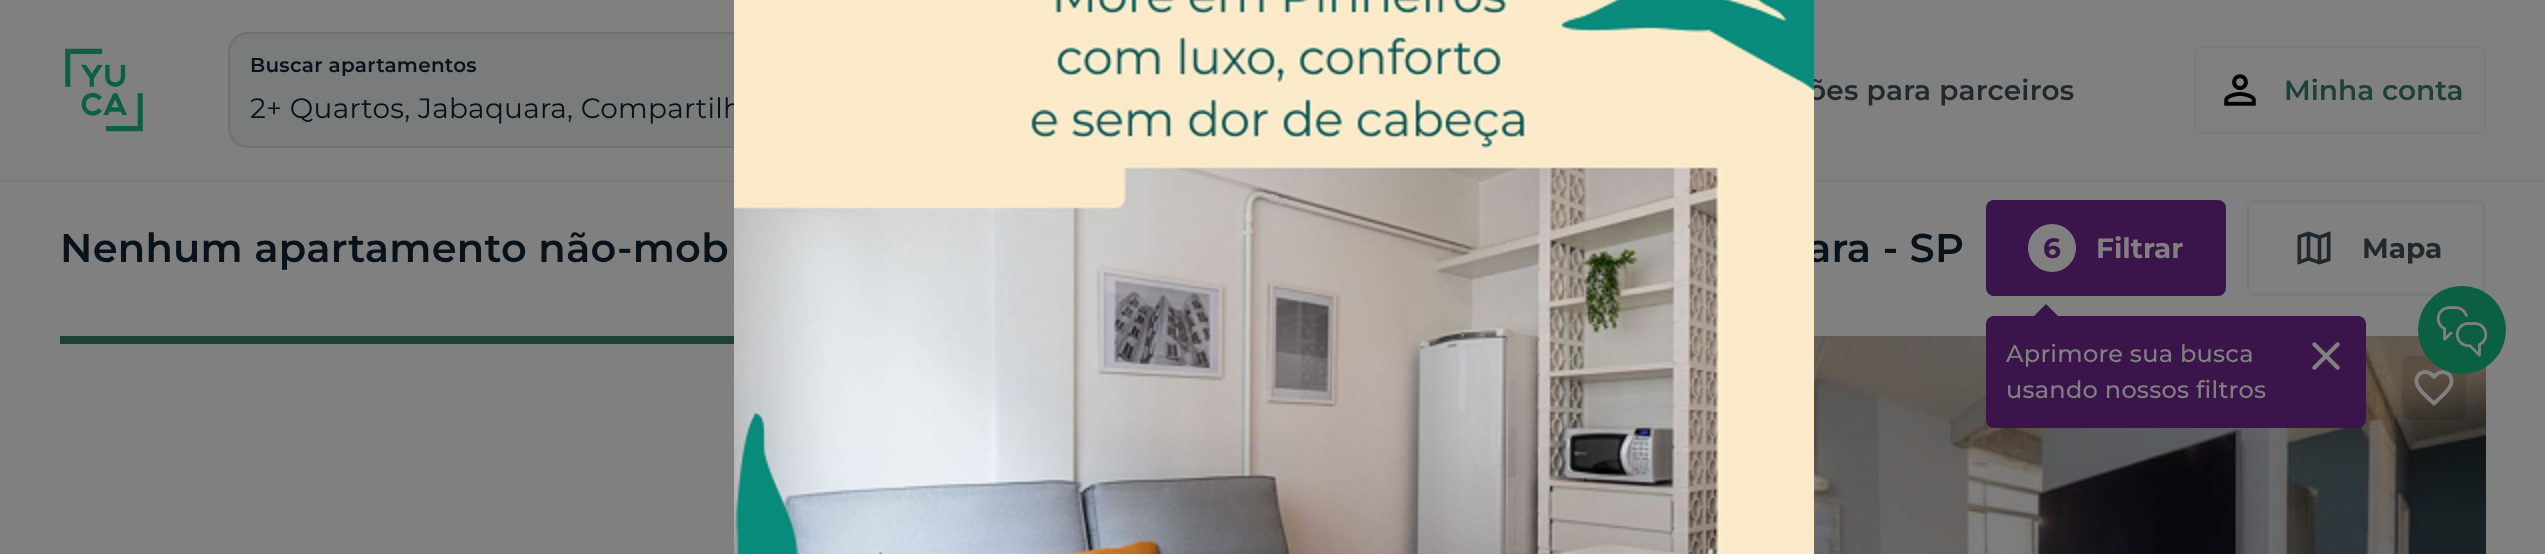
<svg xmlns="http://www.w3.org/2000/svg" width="2545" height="554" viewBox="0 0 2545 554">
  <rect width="100%" height="100%" fill="#808080"/>
  <rect x="0" y="180" width="2545" height="2" fill="#7a7b7b"/>
  <rect x="229" y="33" width="708" height="114" rx="19" fill="#7a7b7b" stroke="#6f7172" stroke-width="2"/>
  <text x="250" y="118" font-family="Montserrat" font-size="28" letter-spacing="0.25" fill="#08121b">2+ Quartos, Jabaquara, Compartilh</text>
  <text x="1808" y="100" font-family="Montserrat" font-size="28" font-weight="600" letter-spacing="0.25" fill="#21292c">ões para parceiros</text>
  <text x="1807" y="262" font-family="Montserrat" font-size="40" font-weight="600" letter-spacing="0.25" fill="#08121b">ara - SP</text>
  <image x="734" y="0" width="1080" height="554" href="img1.png"/>
  <image x="65" y="48" width="78" height="84" href="img2.png"/>
  <text x="250" y="72" font-family="Montserrat" font-size="20" font-weight="600" letter-spacing="0.25" fill="#08121b">Buscar apartamentos</text>
  <rect x="2195" y="47" width="290" height="86" rx="7" fill="none" stroke="#7a7b7b" stroke-width="2"/>
  <image x="2224" y="74" width="32" height="32" href="img3.png"/>
  <text x="2284" y="100" font-family="Montserrat" font-size="28" font-weight="600" fill="#1d4039">Minha conta</text>
  <text x="60" y="262" font-family="Montserrat" font-size="40" font-weight="600" letter-spacing="0.25" fill="#08121b">Nenhum apartamento não-mob</text>
  <rect x="1986" y="200" width="240" height="96" rx="8" fill="#3a144a"/>
  <circle cx="2052" cy="248" r="24" fill="#808080"/>
  <text x="2043" y="258" font-family="Montserrat" font-size="28" font-weight="bold" fill="#3a144a">6</text>
  <text x="2096" y="258" font-family="Montserrat" font-size="28" font-weight="bold" fill="#808080">Filtrar</text>
  <rect x="2248" y="202" width="236" height="92" rx="6" fill="none" stroke="#7a7b7b" stroke-width="4"/>
  <image x="2297" y="231" width="34" height="34" href="img4.png"/>
  <text x="2362" y="258" font-family="Montserrat" font-size="28" font-weight="bold" fill="#21292c">Mapa</text>
  <image x="1814" y="336" width="672" height="218" href="img6.png"/>
  <rect x="1986" y="316" width="380" height="112" rx="8" fill="#3a144a"/>
  <path d="M2058 316H2034L2046 304Z" fill="#3a144a"/>
  <text x="2006" y="362" font-family="Montserrat" font-size="24" font-weight="500" letter-spacing="0.25" fill="#808080">Aprimore sua busca</text>
  <text x="2006" y="398" font-family="Montserrat" font-size="24" font-weight="500" letter-spacing="0.25" fill="#808080">usando nossos filtros</text>
  <image x="2312" y="342" width="28" height="28" href="img5.png"/>
  <rect x="60" y="336" width="674" height="8" fill="#1d4039"/>
  <rect x="2402" y="356" width="64" height="64" rx="8" fill="#000000" fill-opacity="0.1"/>
  <image x="2414" y="370" width="40" height="36" href="img7.png"/>
  <circle cx="2462" cy="330" r="44" fill="#0a6041"/>
  <image x="2436" y="306" width="52" height="51" href="img8.png"/>
</svg>
